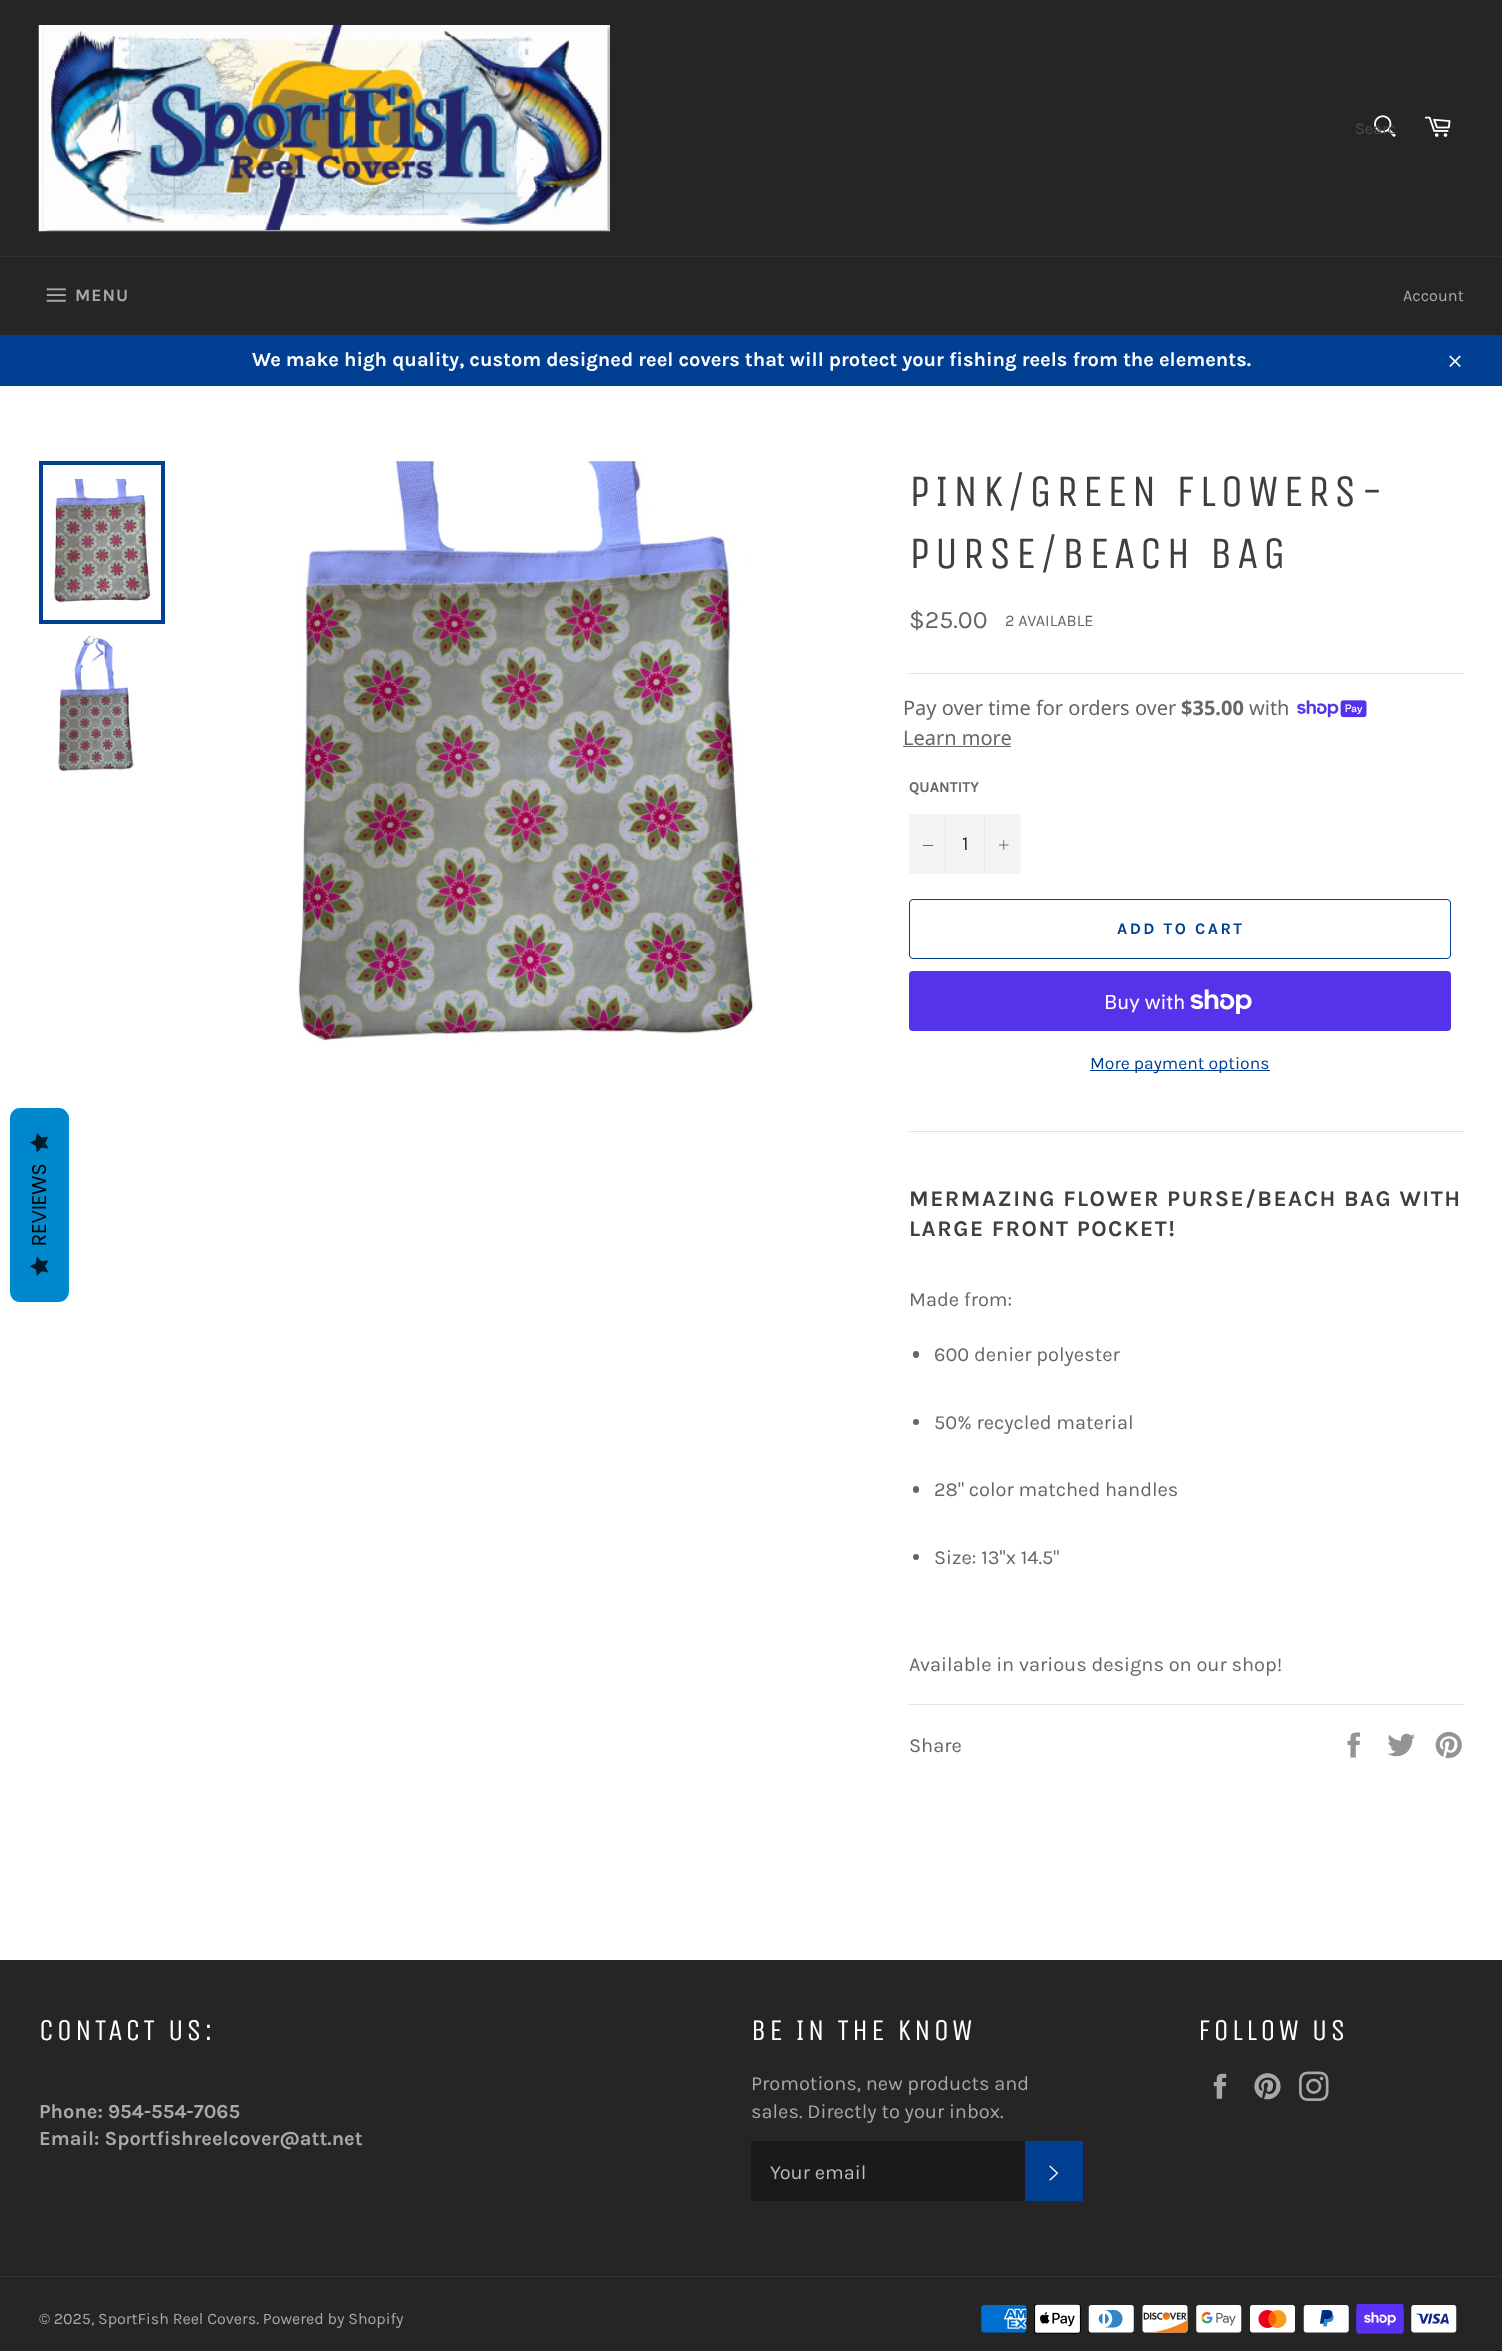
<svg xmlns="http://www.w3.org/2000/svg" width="1502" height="2351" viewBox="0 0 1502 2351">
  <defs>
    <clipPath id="clip1"><rect x="1355" y="119" width="40" height="19"/></clipPath>
  </defs>
  <rect width="100%" height="100%" fill="#262525"/>
  <image x="38" y="25" width="572" height="207" href="img1.png"/>
  <image x="1374" y="115" width="22" height="22" href="img2.png"/>
  <g clip-path="url(#clip1)">
    <text x="1355" y="134" font-family="Karla" font-size="16.25" fill="#4a4a4a">Searc</text>
  </g>
  <image x="1424" y="116" width="27" height="21" href="img3.png"/>
  <rect x="0" y="256" width="1502" height="1" fill="#333232"/>
  <image x="46" y="288" width="20" height="14" href="img4.png"/>
  <text x="75" y="301" font-family="Karla" font-size="17.5" font-weight="bold" letter-spacing="1" fill="#a8a8a8">MENU</text>
  <text x="1403" y="301" font-family="Karla" font-size="16.25" fill="#a8a8a8">Account</text>
  <rect x="0" y="335" width="1502" height="51" fill="#003f92"/>
  <text x="252" y="366" font-family="Karla" font-size="20" font-weight="bold" fill="#ffffff">We make high quality, custom designed reel covers that will protect your fishing reels from the elements.</text>
  <image x="1449" y="355" width="12" height="12" href="img5.png"/>
  <rect x="0" y="386" width="1502" height="1574" fill="#ffffff"/>
  <image x="51" y="478" width="102" height="128" href="img6.png"/>
  <rect x="41" y="463" width="122" height="159" fill="none" stroke="#003f92" stroke-width="4"/>
  <image x="57" y="636" width="78" height="138" href="img7.png"/>
  <image x="298" y="461" width="457" height="581" href="img8.png"/>
  <text x="909" y="506" font-family="Unica One" font-size="45" letter-spacing="4.5" fill="#403f3f">PINK/GREEN FLOWERS-</text>
  <text x="909" y="568" font-family="Unica One" font-size="45" letter-spacing="4.5" fill="#403f3f">PURSE/BEACH BAG</text>
  <text x="909" y="628" font-family="Karla" font-size="25" fill="#666666">$25.00</text>
  <text x="1005" y="626" font-family="Karla" font-size="16.25" fill="#666666">2 AVAILABLE</text>
  <rect x="909" y="673" width="555" height="1" fill="#e0e0e6"/>
  <text x="903" y="715" font-family="Noto Sans" font-size="20" fill="#666666">Pay over time for orders over</text>
  <text x="1181" y="715" font-family="Noto Sans" font-size="20" font-weight="bold" fill="#666666">$35.00</text>
  <text x="1249" y="715" font-family="Noto Sans" font-size="20" fill="#666666">with</text>
  <image x="1297" y="700" width="70" height="18" href="img9.png"/>
  <text x="903" y="745" font-family="Noto Sans" font-size="20" fill="#666666">Learn more</text>
  <rect x="903" y="746" width="108" height="1" fill="#666666"/>
  <text x="909" y="792" font-family="Karla" font-size="15" font-weight="bold" fill="#666666">QUANTITY</text>
  <rect x="909" y="814" width="112" height="60" fill="#f4f4f4"/>
  <rect x="945" y="814" width="1" height="60" fill="#e7e7e7"/>
  <rect x="923" y="845" width="10" height="1" fill="#666666"/>
  <text x="962" y="850" font-family="Karla" font-size="20" fill="#333333">1</text>
  <rect x="984" y="814" width="1" height="60" fill="#e7e7e7"/>
  <image x="999" y="840" width="10" height="10" href="img10.png"/>
  <rect x="909.5" y="899.5" width="541" height="59" rx="3.5" fill="none" stroke="#003f92"/>
  <text x="1117" y="934" font-family="Karla" font-size="16.25" font-weight="bold" letter-spacing="2.5" fill="#003f92">ADD TO CART</text>
  <rect x="909" y="971" width="542" height="60" rx="4" fill="#5433eb"/>
  <text x="1104" y="1009" font-family="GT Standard" font-size="20" fill="#ffffff">Buy with</text>
  <image x="1190" y="989" width="62" height="25" href="img11.png"/>
  <rect x="1090" y="1070" width="180" height="1" fill="#003f92"/>
  <text x="1090" y="1069" font-family="Karla" font-size="17.5" fill="#003f92">More payment options</text>
  <rect x="909" y="1131" width="555" height="1" fill="#e0e0e6"/>
  <text x="909" y="1206" font-family="Karla" font-size="22.5" font-weight="bold" letter-spacing="1.5" fill="#403f3f">MERMAZING FLOWER PURSE/BEACH BAG WITH</text>
  <text x="909" y="1236" font-family="Karla" font-size="22.5" font-weight="bold" letter-spacing="1.5" fill="#403f3f">LARGE FRONT POCKET!</text>
  <text x="909" y="1306" font-family="Karla" font-size="20" fill="#666666">Made from:</text>
  <rect x="913" y="1351" width="6" height="7" rx="3" fill="#666666"/>
  <text x="934" y="1361" font-family="Karla" font-size="20" fill="#666666">600 denier polyester</text>
  <circle cx="916" cy="1422" r="3" fill="#666666"/>
  <text x="934" y="1429" font-family="Karla" font-size="20" fill="#666666">50% recycled material</text>
  <rect x="913" y="1486" width="6" height="7" rx="3" fill="#666666"/>
  <text x="934" y="1496" font-family="Karla" font-size="20" fill="#666666">28" color matched handles</text>
  <circle cx="916" cy="1557" r="3" fill="#666666"/>
  <text x="934" y="1564" font-family="Karla" font-size="20" fill="#666666">Size: 13"x 14.5"</text>
  <text x="909" y="1671" font-family="Karla" font-size="20" fill="#666666">Available in various designs on our shop!</text>
  <rect x="909" y="1704" width="555" height="1" fill="#e0e0e6"/>
  <text x="909" y="1752" font-family="Karla" font-size="20" fill="#666666">Share</text>
  <image x="1347" y="1732" width="13" height="26" href="img12.png"/>
  <image x="1387" y="1733" width="28" height="24" href="img13.png"/>
  <image x="1435" y="1731" width="27" height="28" href="img14.png"/>
  <text x="39" y="2040" font-family="Unica One" font-size="30" letter-spacing="3" fill="#ffffff">CONTACT US:</text>
  <text x="39" y="2118" font-family="Karla" font-size="20" font-weight="bold" fill="#a8a8a8">Phone: 954-554-7065</text>
  <text x="39" y="2145" font-family="Karla" font-size="20" font-weight="bold" fill="#a8a8a8">Email: Sportfishreelcover@att.net</text>
  <text x="751" y="2040" font-family="Unica One" font-size="30" letter-spacing="3" fill="#ffffff">BE IN THE KNOW</text>
  <text x="751" y="2090" font-family="Karla" font-size="20" fill="#a8a8a8">Promotions, new products and</text>
  <text x="751" y="2118" font-family="Karla" font-size="20" fill="#a8a8a8">sales. Directly to your inbox.</text>
  <rect x="751" y="2141" width="274" height="60" fill="#1a1a1a"/>
  <text x="770" y="2179" font-family="Karla" font-size="20" fill="#bababa">Your email</text>
  <rect x="1025" y="2141" width="58" height="60" fill="#003f92"/>
  <image x="1049" y="2165" width="10" height="16" href="img15.png"/>
  <text x="1198" y="2040" font-family="Unica One" font-size="30" letter-spacing="3" fill="#ffffff">FOLLOW US</text>
  <image x="1213" y="2073" width="14" height="26" href="img16.png"/>
  <image x="1254" y="2073" width="27" height="27" href="img17.png"/>
  <image x="1299" y="2071" width="30" height="30" href="img18.png"/>
  <rect x="0" y="2276" width="1502" height="1" fill="#333232"/>
  <text x="39" y="2324" font-family="Karla" font-size="16" fill="#a8a8a8">© 2025, SportFish Reel Covers. Powered by Shopify</text>
  <image x="981" y="2305" width="46" height="28" href="img19.png"/>
  <image x="1034" y="2304" width="47" height="30" href="img20.png"/>
  <image x="1088" y="2305" width="46" height="28" href="img21.png"/>
  <image x="1142" y="2305" width="46" height="28" href="img22.png"/>
  <image x="1196" y="2305" width="46" height="28" href="img23.png"/>
  <image x="1250" y="2305" width="45" height="28" href="img24.png"/>
  <image x="1303" y="2305" width="46" height="28" href="img25.png"/>
  <image x="1356" y="2304" width="48" height="30" href="img26.png"/>
  <image x="1411" y="2305" width="46" height="28" href="img27.png"/>
  <path d="M10 1292V1118C10 1113 14 1108 20 1108H59C64 1108 69 1113 69 1118V1292C69 1297 64 1302 59 1302H20C14 1302 10 1297 10 1292Z" fill="#0088cc"/>
  <image x="30" y="1133" width="18" height="19" href="img28.png"/>
  <text x="46" y="1246" transform="rotate(-90 46 1246)" font-family="Poppins" font-size="20" fill="#000000">REVIEWS</text>
  <image x="30" y="1257" width="18" height="19" href="img29.png"/>
</svg>
